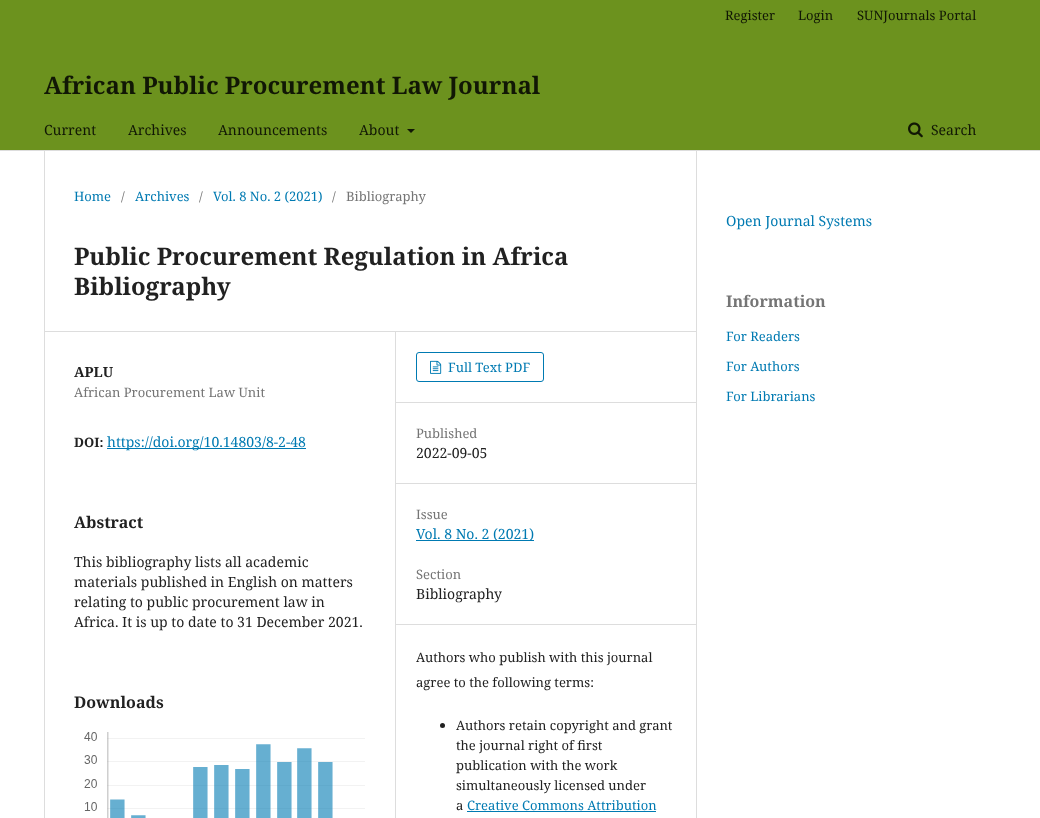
<svg xmlns="http://www.w3.org/2000/svg" width="1040" height="818" viewBox="0 0 1040 818">
  <rect width="100%" height="100%" fill="#ffffff"/>
  <rect x="0" y="0" width="1040" height="150" fill="#6c921e"/>
  <rect x="0" y="150" width="1040" height="1" fill="#dddddd"/>
  <text x="725" y="20" font-family="Noto Serif" font-size="13" fill="#111705">Register</text>
  <text x="798" y="20" font-family="Noto Serif" font-size="13" fill="#111705">Login</text>
  <text x="857" y="20" font-family="Noto Serif" font-size="13" fill="#111705">SUNJournals Portal</text>
  <text x="44" y="94" font-family="Noto Serif" font-size="24" font-weight="bold" fill="#111705">African Public Procurement Law Journal</text>
  <text x="44" y="135" font-family="Noto Serif" font-size="14" fill="#111705">Current</text>
  <text x="128" y="135" font-family="Noto Serif" font-size="14" fill="#111705">Archives</text>
  <text x="218" y="135" font-family="Noto Serif" font-size="14" fill="#111705">Announcements</text>
  <text x="359" y="135" font-family="Noto Serif" font-size="14" fill="#111705">About</text>
  <path d="M407 129H415L411 133Z" fill="#111705"/>
  <image x="908" y="122" width="15" height="16" href="img1.png"/>
  <text x="931" y="135" font-family="Noto Serif" font-size="14" fill="#111705">Search</text>
  <rect x="44" y="331" width="652" height="1" fill="#dddddd"/>
  <rect x="44" y="151" width="1" height="667" fill="#dddddd"/>
  <text x="74" y="201" font-family="Noto Serif" font-size="13" fill="#007ab2">Home</text>
  <text x="121" y="201" font-family="Noto Serif" font-size="13" fill="#757575">/</text>
  <text x="135" y="201" font-family="Noto Serif" font-size="13" fill="#007ab2">Archives</text>
  <text x="199" y="201" font-family="Noto Serif" font-size="13" fill="#757575">/</text>
  <text x="213" y="201" font-family="Noto Serif" font-size="13" fill="#007ab2">Vol. 8 No. 2 (2021)</text>
  <text x="332" y="201" font-family="Noto Serif" font-size="13" fill="#757575">/</text>
  <text x="346" y="201" font-family="Noto Serif" font-size="13" fill="#757575">Bibliography</text>
  <text x="74" y="265" font-family="Noto Serif" font-size="24" font-weight="bold" fill="#212121">Public Procurement Regulation in Africa</text>
  <text x="74" y="295" font-family="Noto Serif" font-size="24" font-weight="bold" fill="#212121">Bibliography</text>
  <rect x="395" y="332" width="1" height="486" fill="#dddddd"/>
  <text x="74" y="377" font-family="Noto Serif" font-size="14" font-weight="bold" fill="#212121">APLU</text>
  <text x="74" y="397" font-family="Noto Serif" font-size="13" fill="#757575">African Procurement Law Unit</text>
  <text x="74" y="447" font-family="Noto Serif" font-size="13" font-weight="bold" fill="#212121">DOI:</text>
  <rect x="107" y="448" width="199" height="1" fill="#007ab2"/>
  <text x="107" y="447" font-family="Noto Serif" font-size="14" fill="#007ab2">https://doi.org/10.14803/8-2-48</text>
  <text x="74" y="528" font-family="Noto Serif" font-size="16" font-weight="bold" fill="#212121">Abstract</text>
  <text x="74" y="567" font-family="Noto Serif" font-size="14" fill="#212121">This bibliography lists all academic</text>
  <text x="74" y="587" font-family="Noto Serif" font-size="14" fill="#212121">materials published in English on matters</text>
  <text x="74" y="607" font-family="Noto Serif" font-size="14" fill="#212121">relating to public procurement law in</text>
  <text x="74" y="627" font-family="Noto Serif" font-size="14" fill="#212121">Africa. It is up to date to 31 December 2021.</text>
  <text x="74" y="708" font-family="Noto Serif" font-size="16" font-weight="bold" fill="#212121">Downloads</text>
  <image x="84" y="732" width="281" height="86" href="img2.png"/>
  <rect x="396" y="402" width="300" height="1" fill="#dddddd"/>
  <rect x="416.5" y="352.5" width="127" height="29" rx="2.5" fill="none" stroke="#007ab2"/>
  <image x="430" y="360" width="12" height="14" href="img3.png"/>
  <text x="448" y="372" font-family="Noto Serif" font-size="13" fill="#007ab2">Full Text PDF</text>
  <rect x="396" y="483" width="300" height="1" fill="#dddddd"/>
  <text x="416" y="438" font-family="Noto Serif" font-size="13" fill="#757575">Published</text>
  <text x="416" y="458" font-family="Noto Serif" font-size="14" fill="#212121">2022-09-05</text>
  <rect x="396" y="624" width="300" height="1" fill="#dddddd"/>
  <text x="416" y="519" font-family="Noto Serif" font-size="13" fill="#757575">Issue</text>
  <rect x="416" y="540" width="118" height="1" fill="#007ab2"/>
  <text x="416" y="539" font-family="Noto Serif" font-size="14" fill="#007ab2">Vol. 8 No. 2 (2021)</text>
  <text x="416" y="579" font-family="Noto Serif" font-size="13" fill="#757575">Section</text>
  <text x="416" y="599" font-family="Noto Serif" font-size="14" fill="#212121">Bibliography</text>
  <text x="416" y="662" font-family="Noto Serif" font-size="13" fill="#212121">Authors who publish with this journal</text>
  <text x="416" y="687" font-family="Noto Serif" font-size="13" fill="#212121">agree to the following terms:</text>
  <circle cx="442.5" cy="725.5" r="2.5" fill="#212121"/>
  <text x="456" y="730" font-family="Noto Serif" font-size="13" fill="#212121">Authors retain copyright and grant</text>
  <text x="456" y="750" font-family="Noto Serif" font-size="13" fill="#212121">the journal right of first</text>
  <text x="456" y="770" font-family="Noto Serif" font-size="13" fill="#212121">publication with the work</text>
  <text x="456" y="790" font-family="Noto Serif" font-size="13" fill="#212121">simultaneously licensed under</text>
  <text x="456" y="810" font-family="Noto Serif" font-size="13" fill="#212121">a</text>
  <text x="467" y="810" font-family="Noto Serif" font-size="13" fill="#007ab2">Creative Commons Attribution</text>
  <rect x="467" y="811" width="189" height="1" fill="#007ab2"/>
  <rect x="696" y="151" width="1" height="667" fill="#dddddd"/>
  <text x="726" y="226" font-family="Noto Serif" font-size="14" fill="#007ab2">Open Journal Systems</text>
  <text x="726" y="307" font-family="Noto Serif" font-size="16" font-weight="bold" fill="#757575">Information</text>
  <text x="726" y="341" font-family="Noto Serif" font-size="13" fill="#007ab2">For Readers</text>
  <text x="726" y="371" font-family="Noto Serif" font-size="13" fill="#007ab2">For Authors</text>
  <text x="726" y="401" font-family="Noto Serif" font-size="13" fill="#007ab2">For Librarians</text>
</svg>
